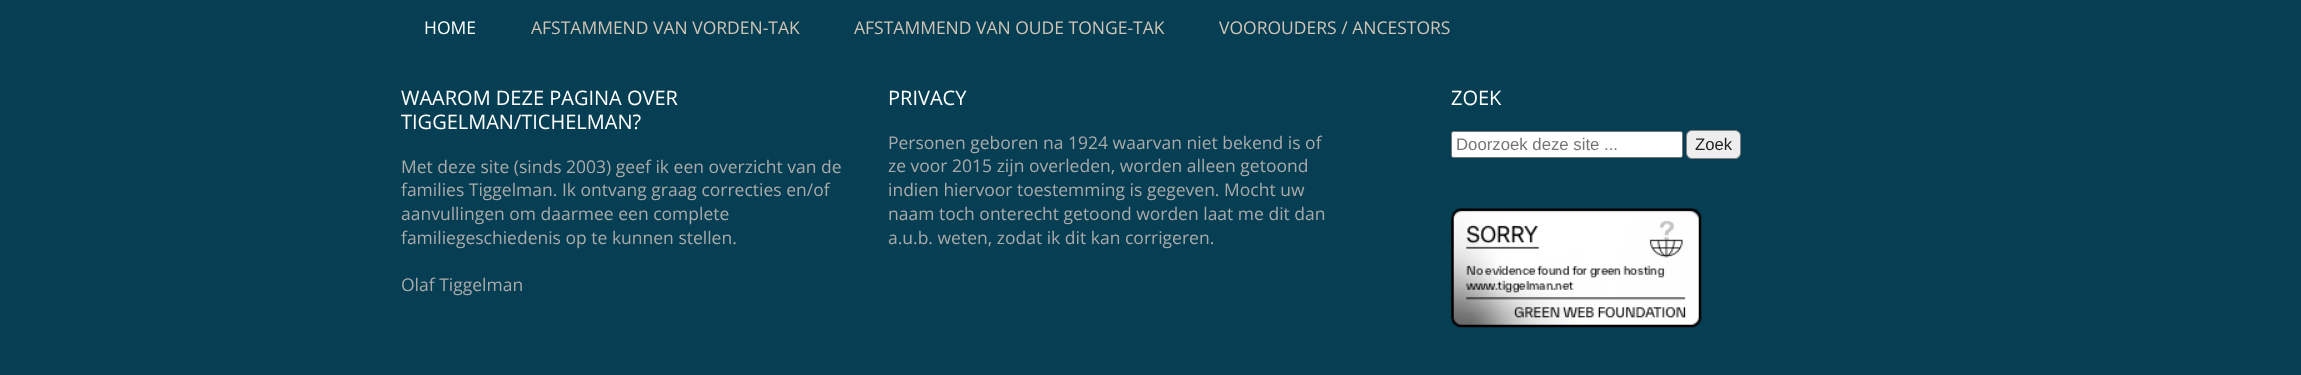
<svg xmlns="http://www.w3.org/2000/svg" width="2301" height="375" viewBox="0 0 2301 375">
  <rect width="100%" height="100%" fill="#063e53"/>
  <text x="424" y="34" font-family="Open Sans" font-size="17.5" fill="#ffffff">HOME</text>
  <text x="531" y="34" font-family="Open Sans" font-size="17.5" fill="#d1c5b7">AFSTAMMEND VAN VORDEN-TAK</text>
  <text x="854" y="34" font-family="Open Sans" font-size="17.5" fill="#d1c5b7">AFSTAMMEND VAN OUDE TONGE-TAK</text>
  <text x="1219" y="34" font-family="Open Sans" font-size="17.5" fill="#d1c5b7">VOOROUDERS / ANCESTORS</text>
  <text x="401" y="105" font-family="Open Sans" font-size="20" fill="#ffffff">WAAROM DEZE PAGINA OVER</text>
  <text x="401" y="129" font-family="Open Sans" font-size="20" fill="#ffffff">TIGGELMAN/TICHELMAN?</text>
  <text x="401" y="173" font-family="Open Sans" font-size="17.5" fill="#aaaaaa">Met deze site (sinds 2003) geef ik een overzicht van de</text>
  <text x="401" y="196" font-family="Open Sans" font-size="17.5" fill="#aaaaaa">families Tiggelman. Ik ontvang graag correcties en/of</text>
  <text x="401" y="220" font-family="Open Sans" font-size="17.5" fill="#aaaaaa">aanvullingen om daarmee een complete</text>
  <text x="401" y="244" font-family="Open Sans" font-size="17.5" fill="#aaaaaa">familiegeschiedenis op te kunnen stellen.</text>
  <text x="401" y="291" font-family="Open Sans" font-size="17.5" fill="#aaaaaa">Olaf Tiggelman</text>
  <text x="888" y="105" font-family="Open Sans" font-size="20" fill="#ffffff">PRIVACY</text>
  <text x="888" y="149" font-family="Open Sans" font-size="17.5" fill="#aaaaaa">Personen geboren na 1924 waarvan niet bekend is of</text>
  <text x="888" y="172" font-family="Open Sans" font-size="17.5" fill="#aaaaaa">ze voor 2015 zijn overleden, worden alleen getoond</text>
  <text x="888" y="196" font-family="Open Sans" font-size="17.5" fill="#aaaaaa">indien hiervoor toestemming is gegeven. Mocht uw</text>
  <text x="888" y="220" font-family="Open Sans" font-size="17.5" fill="#aaaaaa">naam toch onterecht getoond worden laat me dit dan</text>
  <text x="888" y="244" font-family="Open Sans" font-size="17.5" fill="#aaaaaa">a.u.b. weten, zodat ik dit kan corrigeren.</text>
  <text x="1451" y="105" font-family="Open Sans" font-size="20" fill="#ffffff">ZOEK</text>
  <rect x="1451.5" y="131.5" width="231" height="26" rx="2" fill="#ffffff" stroke="#767676"/>
  <text x="1456" y="150" font-family="Liberation Sans" font-size="16.75" fill="#757575">Doorzoek deze site ...</text>
  <rect x="1686.5" y="130.5" width="54" height="28" rx="5.5" fill="#eeeeee" stroke="#808080"/>
  <text x="1695" y="150" font-family="Liberation Sans" font-size="16.75" fill="#222222">Zoek</text>
  <image x="1451" y="208" width="251" height="120" href="img1.png"/>
</svg>
